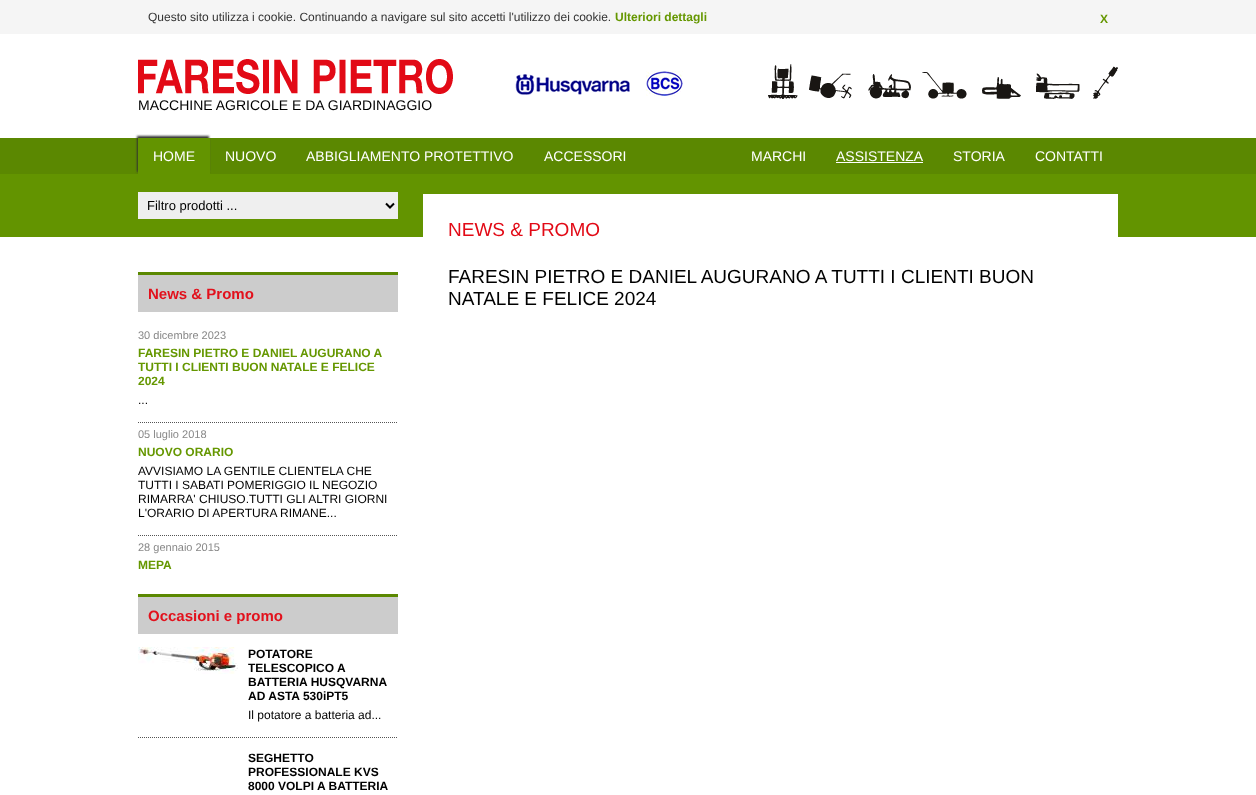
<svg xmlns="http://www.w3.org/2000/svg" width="1256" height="795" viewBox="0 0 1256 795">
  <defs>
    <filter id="blur1" x="-50%" y="-200%" width="200%" height="500%"><feGaussianBlur stdDeviation="1"/></filter>
  </defs>
  <rect width="100%" height="100%" fill="#ffffff"/>
  <rect x="0" y="0" width="1256" height="34" fill="#f5f5f5"/>
  <text x="148" y="21" font-family="Liberation Sans" font-size="12" fill="#333333">Questo sito utilizza i cookie. Continuando a navigare sul sito accetti l'utilizzo dei cookie.</text>
  <text x="615" y="21" font-family="Liberation Sans" font-size="12" font-weight="bold" fill="#659700">Ulteriori dettagli</text>
  <text x="1100" y="23" font-family="Liberation Sans" font-size="12" font-weight="bold" fill="#659700">X</text>
  <image x="515" y="71" width="168" height="25" href="img1.png"/>
  <image x="768" y="64" width="350" height="35" href="img2.png"/>
  <image x="138" y="59" width="315" height="35" href="img3.png"/>
  <text x="138" y="110" font-family="Liberation Sans" font-size="14" fill="#000000">MACCHINE AGRICOLE E DA GIARDINAGGIO</text>
  <rect x="0" y="138" width="1256" height="36" fill="#5b8801"/>
  <rect x="137" y="136" width="72" height="36" fill="#333333" filter="url(#blur1)"/>
  <rect x="138" y="138" width="72" height="36" fill="#639400"/>
  <text x="153" y="161" font-family="Liberation Sans" font-size="14" fill="#ffffff">HOME</text>
  <text x="225" y="161" font-family="Liberation Sans" font-size="14" fill="#ffffff">NUOVO</text>
  <text x="306" y="161" font-family="Liberation Sans" font-size="14" fill="#ffffff">ABBIGLIAMENTO PROTETTIVO</text>
  <text x="544" y="161" font-family="Liberation Sans" font-size="14" fill="#ffffff">ACCESSORI</text>
  <text x="751" y="161" font-family="Liberation Sans" font-size="14" fill="#ffffff">MARCHI</text>
  <text x="836" y="161" font-family="Liberation Sans" font-size="14" fill="#ffffff">ASSISTENZA</text>
  <rect x="836" y="162" width="87" height="1" fill="#ffffff"/>
  <text x="953" y="161" font-family="Liberation Sans" font-size="14" fill="#ffffff">STORIA</text>
  <text x="1035" y="161" font-family="Liberation Sans" font-size="14" fill="#ffffff">CONTATTI</text>
  <rect x="0" y="174" width="1256" height="63" fill="#639400"/>
  <rect x="138" y="192" width="260" height="27" fill="#efefef"/>
  <path d="M386 203.5L390 207.5L394 203.5" fill="none" stroke="#000000" stroke-width="2"/>
  <text x="147" y="210" font-family="Liberation Sans" font-size="13" fill="#000000">Filtro prodotti ...</text>
  <rect x="423" y="194" width="695" height="43" fill="#ffffff"/>
  <text x="448" y="236" font-family="Liberation Sans" font-size="19" fill="#e20a16">NEWS &amp; PROMO</text>
  <text x="448" y="283" font-family="Liberation Sans" font-size="19" fill="#000000">FARESIN PIETRO E DANIEL AUGURANO A TUTTI I CLIENTI BUON</text>
  <text x="448" y="305" font-family="Liberation Sans" font-size="19" fill="#000000">NATALE E FELICE 2024</text>
  <rect x="138" y="275" width="260" height="37" fill="#cccccc"/>
  <rect x="138" y="272" width="260" height="3" fill="#5b8801"/>
  <text x="148" y="299" font-family="Liberation Sans" font-size="15" font-weight="bold" fill="#e2111c">News &amp; Promo</text>
  <path d="M138 422.5H398" fill="none" stroke="#555555" stroke-dasharray="1 1"/>
  <text x="138" y="339" font-family="Liberation Sans" font-size="11" fill="#888888">30 dicembre 2023</text>
  <text x="138" y="357" font-family="Liberation Sans" font-size="12" font-weight="bold" fill="#659700">FARESIN PIETRO E DANIEL AUGURANO A</text>
  <text x="138" y="371" font-family="Liberation Sans" font-size="12" font-weight="bold" fill="#659700">TUTTI I CLIENTI BUON NATALE E FELICE</text>
  <text x="138" y="385" font-family="Liberation Sans" font-size="12" font-weight="bold" fill="#659700">2024</text>
  <text x="138" y="404" font-family="Liberation Sans" font-size="12" fill="#000000">...</text>
  <path d="M138 535.5H398" fill="none" stroke="#555555" stroke-dasharray="1 1"/>
  <text x="138" y="438" font-family="Liberation Sans" font-size="11" fill="#888888">05 luglio 2018</text>
  <text x="138" y="456" font-family="Liberation Sans" font-size="12" font-weight="bold" fill="#659700">NUOVO ORARIO</text>
  <text x="138" y="475" font-family="Liberation Sans" font-size="12" fill="#000000">AVVISIAMO LA GENTILE CLIENTELA CHE</text>
  <text x="138" y="489" font-family="Liberation Sans" font-size="12" fill="#000000">TUTTI I SABATI POMERIGGIO IL NEGOZIO</text>
  <text x="138" y="503" font-family="Liberation Sans" font-size="12" fill="#000000">RIMARRA' CHIUSO.TUTTI GLI ALTRI GIORNI</text>
  <text x="138" y="517" font-family="Liberation Sans" font-size="12" fill="#000000">L'ORARIO DI APERTURA RIMANE...</text>
  <text x="138" y="551" font-family="Liberation Sans" font-size="11" fill="#888888">28 gennaio 2015</text>
  <text x="138" y="569" font-family="Liberation Sans" font-size="12" font-weight="bold" fill="#659700">MEPA</text>
  <rect x="138" y="597" width="260" height="37" fill="#cccccc"/>
  <rect x="138" y="594" width="260" height="3" fill="#5b8801"/>
  <text x="148" y="621" font-family="Liberation Sans" font-size="15" font-weight="bold" fill="#e2111c">Occasioni e promo</text>
  <path d="M138 737.5H398" fill="none" stroke="#555555" stroke-dasharray="1 1"/>
  <image x="138" y="647" width="100" height="27" href="img4.png"/>
  <text x="248" y="658" font-family="Liberation Sans" font-size="12" font-weight="bold" fill="#000000">POTATORE</text>
  <text x="248" y="672" font-family="Liberation Sans" font-size="12" font-weight="bold" fill="#000000">TELESCOPICO A</text>
  <text x="248" y="686" font-family="Liberation Sans" font-size="12" font-weight="bold" fill="#000000">BATTERIA HUSQVARNA</text>
  <text x="248" y="700" font-family="Liberation Sans" font-size="12" font-weight="bold" fill="#000000">AD ASTA 530iPT5</text>
  <text x="248" y="719" font-family="Liberation Sans" font-size="12" fill="#000000">Il potatore a batteria ad...</text>
  <text x="248" y="762" font-family="Liberation Sans" font-size="12" font-weight="bold" fill="#000000">SEGHETTO</text>
  <text x="248" y="776" font-family="Liberation Sans" font-size="12" font-weight="bold" fill="#000000">PROFESSIONALE KVS</text>
  <text x="248" y="790" font-family="Liberation Sans" font-size="12" font-weight="bold" fill="#000000">8000 VOLPI A BATTERIA</text>
</svg>
